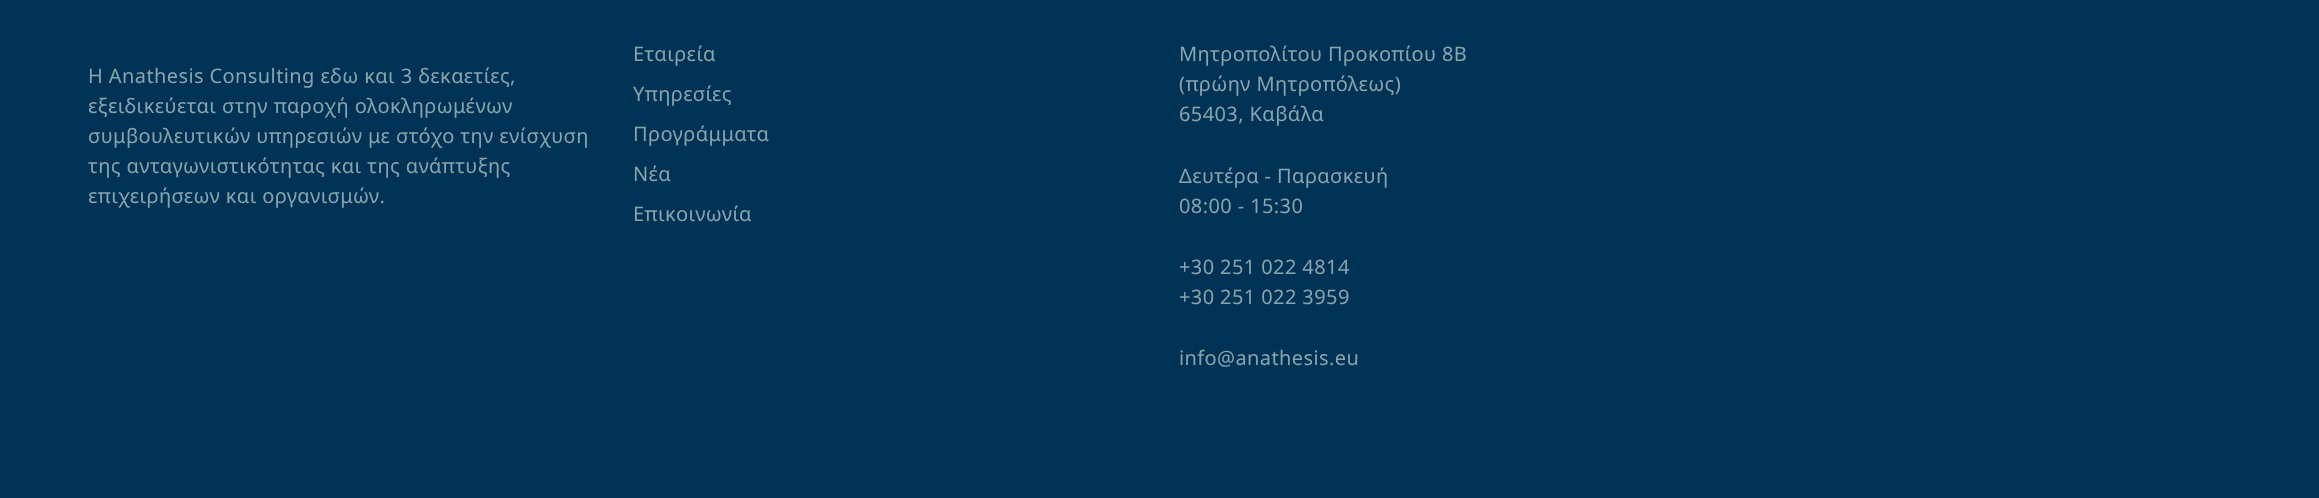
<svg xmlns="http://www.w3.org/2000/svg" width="2319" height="498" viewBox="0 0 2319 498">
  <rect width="100%" height="100%" fill="#003256"/>
  <text x="88" y="83" font-family="Noto Sans" font-size="20" letter-spacing="0.4" fill="#88a5ad">Η Anathesis Consulting εδω και 3 δεκαετίες,</text>
  <text x="88" y="113" font-family="Noto Sans" font-size="20" letter-spacing="0.4" fill="#88a5ad">εξειδικεύεται στην παροχή ολοκληρωμένων</text>
  <text x="88" y="143" font-family="Noto Sans" font-size="20" letter-spacing="0.4" fill="#88a5ad">συμβουλευτικών υπηρεσιών με στόχο την ενίσχυση</text>
  <text x="88" y="173" font-family="Noto Sans" font-size="20" letter-spacing="0.4" fill="#88a5ad">της ανταγωνιστικότητας και της ανάπτυξης</text>
  <text x="88" y="203" font-family="Noto Sans" font-size="20" letter-spacing="0.4" fill="#88a5ad">επιχειρήσεων και οργανισμών.</text>
  <text x="633" y="61" font-family="Noto Sans" font-size="20" letter-spacing="0.4" fill="#88a5ad">Εταιρεία</text>
  <text x="633" y="101" font-family="Noto Sans" font-size="20" letter-spacing="0.4" fill="#88a5ad">Υπηρεσίες</text>
  <text x="633" y="141" font-family="Noto Sans" font-size="20" letter-spacing="0.4" fill="#88a5ad">Προγράμματα</text>
  <text x="633" y="181" font-family="Noto Sans" font-size="20" letter-spacing="0.4" fill="#88a5ad">Νέα</text>
  <text x="633" y="221" font-family="Noto Sans" font-size="20" letter-spacing="0.4" fill="#88a5ad">Επικοινωνία</text>
  <text x="1179" y="61" font-family="Noto Sans" font-size="20" letter-spacing="0.4" fill="#88a5ad">Μητροπολίτου Προκοπίου 8Β</text>
  <text x="1179" y="91" font-family="Noto Sans" font-size="20" letter-spacing="0.4" fill="#88a5ad">(πρώην Μητροπόλεως)</text>
  <text x="1179" y="121" font-family="Noto Sans" font-size="20" letter-spacing="0.4" fill="#88a5ad">65403, Καβάλα</text>
  <text x="1179" y="183" font-family="Noto Sans" font-size="20" letter-spacing="0.4" fill="#88a5ad">Δευτέρα - Παρασκευή</text>
  <text x="1179" y="213" font-family="Noto Sans" font-size="20" letter-spacing="0.4" fill="#88a5ad">08:00 - 15:30</text>
  <text x="1179" y="274" font-family="Noto Sans" font-size="20" letter-spacing="0.4" fill="#88a5ad">+30 251 022 4814</text>
  <text x="1179" y="304" font-family="Noto Sans" font-size="20" letter-spacing="0.4" fill="#88a5ad">+30 251 022 3959</text>
  <text x="1179" y="365" font-family="Noto Sans" font-size="20" letter-spacing="0.4" fill="#88a5ad">info@anathesis.eu</text>
</svg>
